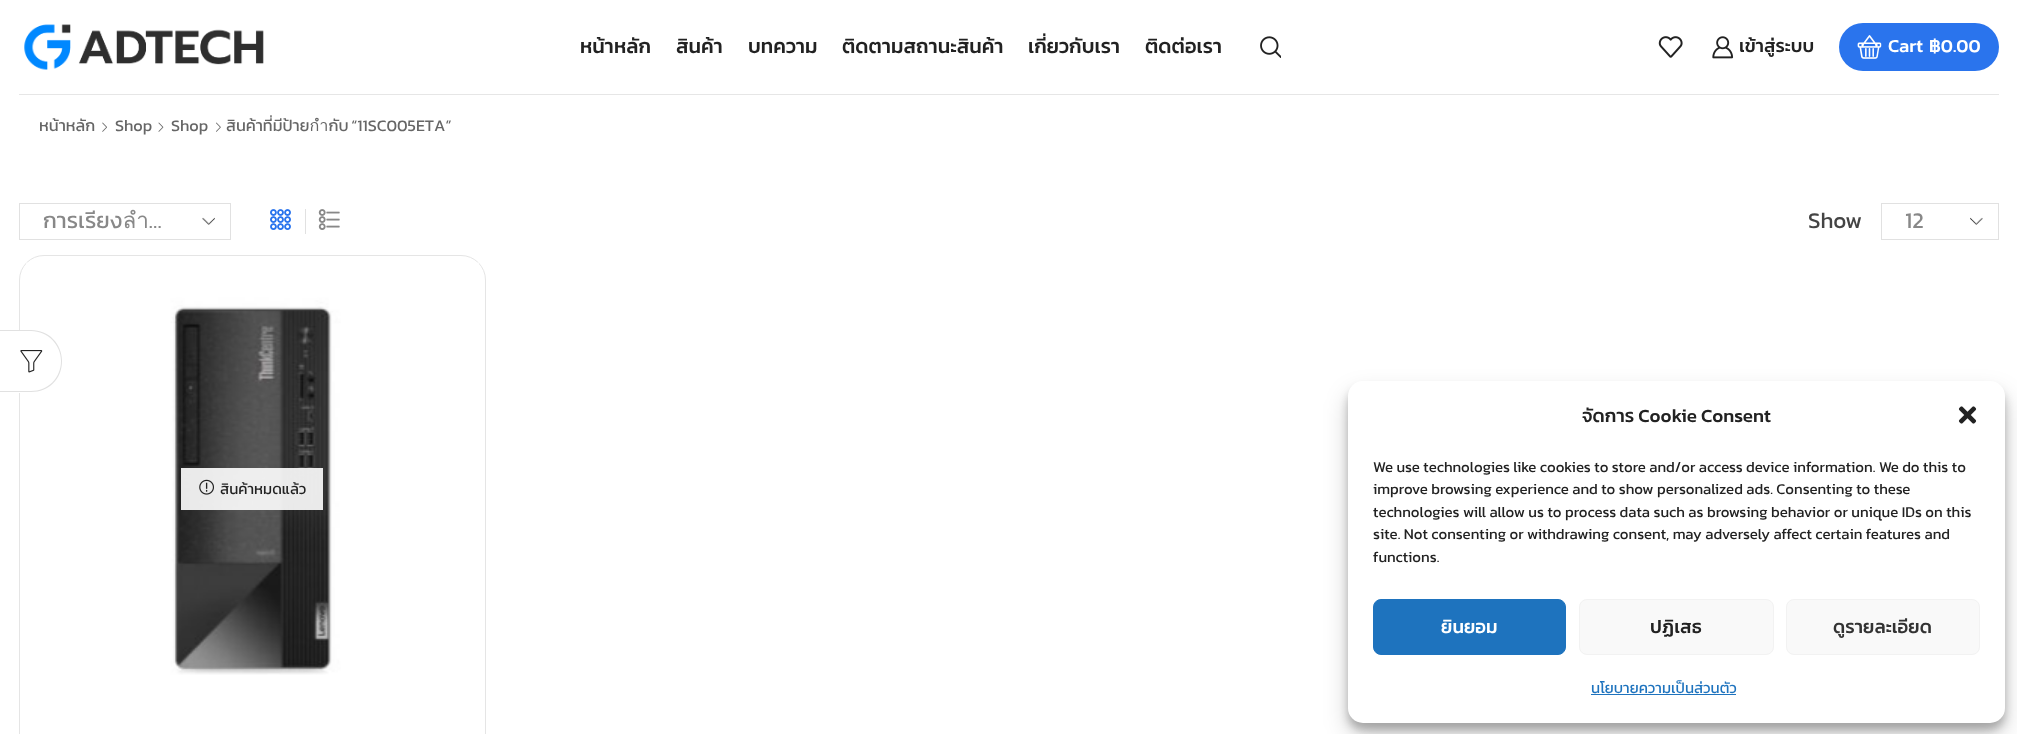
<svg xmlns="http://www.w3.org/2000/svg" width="2017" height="734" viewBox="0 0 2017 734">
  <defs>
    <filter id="blur1" x="-50%" y="-200%" width="200%" height="500%"><feGaussianBlur stdDeviation="4"/></filter>
    <filter id="blur2" x="-50%" y="-200%" width="200%" height="500%"><feGaussianBlur stdDeviation="12.5"/></filter>
  </defs>
  <rect width="100%" height="100%" fill="#ffffff"/>
  <rect x="19.5" y="255.5" width="466" height="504" rx="24.5" fill="none" stroke="#e5e5e5"/>
  <image x="26" y="262" width="453" height="413" href="img14.png"/>
  <path d="M0 330H31.5C49 330 63 344 63 361.5C63 379 49 393 31.5 393H0Z" fill="#ffffff"/>
  <path d="M0 330H31C49 330 62 344 62 361C62 379 49 392 31 392H0ZM0 331H31C48 331 61 345 61 361C61 378 48 391 31 391H0Z" fill="#e1e1e1" fill-rule="evenodd"/>
  <image x="20" y="350" width="23" height="23" href="img1.png"/>
  <image x="24" y="24" width="240" height="46" href="img2.png"/>
  <text x="580" y="53" font-family="Kanit" font-size="20.25" font-weight="500" fill="#222222">หน้าหลัก</text>
  <text x="676" y="53" font-family="Kanit" font-size="20.25" font-weight="500" fill="#222222">สินค้า</text>
  <text x="748" y="53" font-family="Kanit" font-size="20.25" font-weight="500" fill="#222222">บทความ</text>
  <text x="842" y="53" font-family="Kanit" font-size="20.25" font-weight="500" fill="#222222">ติดตามสถานะสินค้า</text>
  <text x="1028" y="53" font-family="Kanit" font-size="20.25" font-weight="500" fill="#222222">เกี่ยวกับเรา</text>
  <text x="1145" y="53" font-family="Kanit" font-size="20.25" font-weight="500" fill="#222222">ติดต่อเรา</text>
  <image x="1260" y="36" width="21" height="22" href="img3.png"/>
  <image x="1658" y="36" width="25" height="22" href="img4.png"/>
  <image x="1712" y="36" width="22" height="23" href="img5.png"/>
  <text x="1739" y="52" font-family="Kanit" font-size="18.5" font-weight="500" fill="#222222">เข้าสู่ระบบ</text>
  <rect x="1839" y="23" width="160" height="48" rx="24" fill="#2a74ed"/>
  <image x="1857" y="35" width="25" height="24" href="img6.png"/>
  <text x="1888" y="52" font-family="Kanit" font-size="18.5" font-weight="500" fill="#ffffff">Cart</text>
  <text x="1929" y="52" font-family="Kanit" font-size="18.5" font-weight="500" fill="#ffffff">฿0.00</text>
  <rect x="19" y="94" width="1980" height="1" fill="#e6e6e6"/>
  <text x="39" y="131" font-family="Kanit" font-size="16.25" fill="#666666">หน้าหลัก</text>
  <image x="102" y="122" width="5" height="10" href="img7.png"/>
  <text x="115" y="131" font-family="Kanit" font-size="16.25" fill="#666666">Shop</text>
  <image x="158" y="122" width="6" height="10" href="img8.png"/>
  <text x="171" y="131" font-family="Kanit" font-size="16.25" fill="#666666">Shop</text>
  <image x="216" y="122" width="5" height="10" href="img9.png"/>
  <text x="226" y="131" word-spacing="-1" font-family="Kanit" font-size="16.25" fill="#666666">สินค้าที่มีป้ายกำกับ “11SC005ETA”</text>
  <image x="202" y="217" width="13" height="8" href="img10.png"/>
  <rect x="19.5" y="203.5" width="211" height="36" fill="none" stroke="#e1e1e1"/>
  <text x="43" y="228" font-family="Kanit" font-size="22.5" fill="#888888">การเรียงลำ…</text>
  <image x="270" y="209" width="21" height="21" href="img11.png"/>
  <rect x="305" y="209" width="1" height="25" fill="#e1e1e1"/>
  <image x="318" y="209" width="22" height="21" href="img12.png"/>
  <text x="1808" y="228" font-family="Kanit" font-size="22.5" fill="#444444">Show</text>
  <image x="1970" y="217" width="13" height="8" href="img13.png"/>
  <rect x="1881.5" y="203.5" width="117" height="36" fill="none" stroke="#e1e1e1"/>
  <text x="1905" y="228" font-family="Kanit" font-size="22.5" fill="#888888">12</text>
  <rect x="181" y="468" width="142" height="42" fill="#ffffff" fill-opacity="0.9"/>
  <image x="199" y="479" width="15" height="16" href="img15.png"/>
  <text x="220" y="494" font-family="Kanit" font-size="15" fill="#222222">สินค้าหมดแล้ว</text>
  <rect x="1348" y="389" width="657" height="341" rx="15" fill="#000000" fill-opacity="0.23" filter="url(#blur1)"/>
  <rect x="1348" y="394" width="657" height="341" rx="15" fill="#000000" fill-opacity="0.19" filter="url(#blur2)"/>
  <rect x="1348" y="381" width="657" height="342" rx="15" fill="#ffffff"/>
  <text x="1582" y="422" font-family="Kanit" font-size="18.75" font-weight="500" fill="#222222">จัดการ Cookie Consent</text>
  <image x="1958" y="406" width="19" height="18" href="img16.png"/>
  <text x="1373" y="472" font-family="Kanit" font-size="15" fill="#222222">We use technologies like cookies to store and/or access device information. We do this to</text>
  <text x="1373" y="494" font-family="Kanit" font-size="15" fill="#222222">improve browsing experience and to show personalized ads. Consenting to these</text>
  <text x="1373" y="517" font-family="Kanit" font-size="15" fill="#222222">technologies will allow us to process data such as browsing behavior or unique IDs on this</text>
  <text x="1373" y="539" font-family="Kanit" font-size="15" fill="#222222">site. Not consenting or withdrawing consent, may adversely affect certain features and</text>
  <text x="1373" y="562" font-family="Kanit" font-size="15" fill="#222222">functions.</text>
  <rect x="1373.5" y="599.5" width="192" height="55" rx="7.5" fill="#1e73be" stroke="#1e73be"/>
  <text x="1441" y="633" font-family="Kanit" font-size="18.75" font-weight="500" fill="#ffffff">ยินยอม</text>
  <rect x="1579.5" y="599.5" width="194" height="55" rx="7.5" fill="#f9f9f9" stroke="#f2f2f2"/>
  <text x="1650" y="633" font-family="Kanit" font-size="18.75" font-weight="500" fill="#222222">ปฏิเสธ</text>
  <rect x="1786.5" y="599.5" width="193" height="55" rx="7.5" fill="#f9f9f9" stroke="#f2f2f2"/>
  <text x="1833" y="633" font-family="Kanit" font-size="18.75" font-weight="500" fill="#333333">ดูรายละเอียด</text>
  <text x="1591" y="693" font-family="Kanit" font-size="15" fill="#1e73be">นโยบายความเป็นส่วนตัว</text>
  <rect x="1591" y="694" width="145" height="1" fill="#1e73be"/>
</svg>
